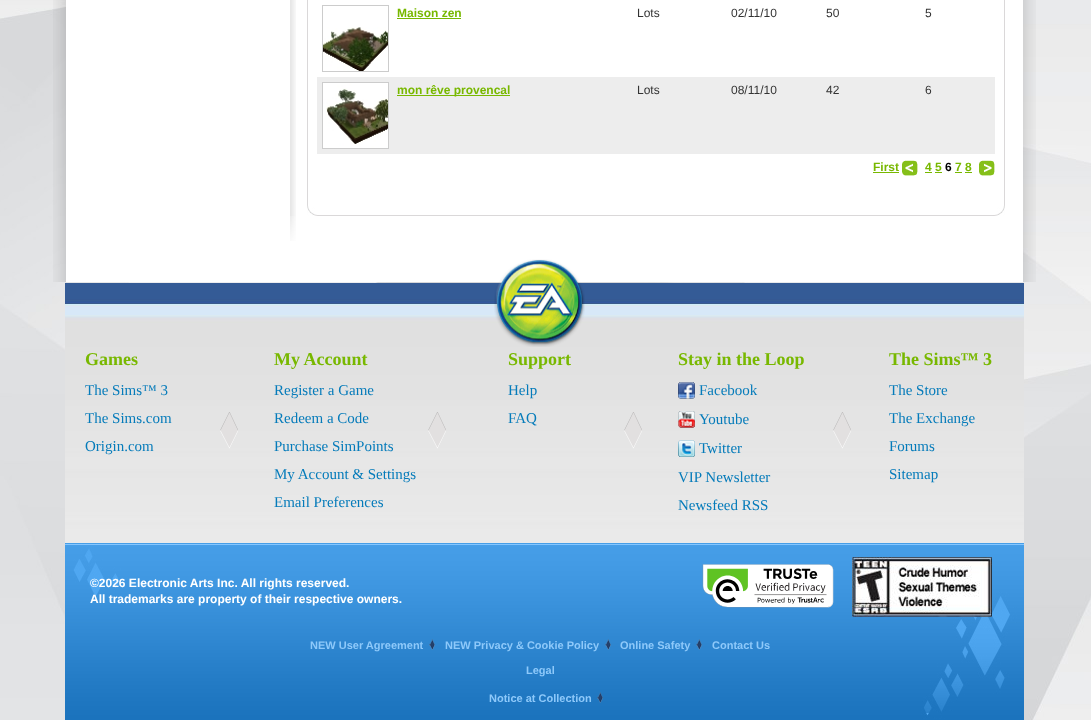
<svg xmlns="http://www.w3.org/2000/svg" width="1091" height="720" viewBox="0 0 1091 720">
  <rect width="100%" height="100%" fill="#ffffff"/>
  <image x="0" y="0" width="1091" height="720" href="img1.png"/>
  <image x="53" y="0" width="983" height="263" href="img2.png"/>
  <image x="290" y="0" width="6" height="216" href="img3.png"/>
  <rect x="1004" y="0" width="1" height="201" fill="#dad8d9"/>
  <rect x="307" y="0" width="1" height="201" fill="#dad8d9"/>
  <rect x="322.5" y="5.5" width="66" height="66" fill="none" stroke="#cccccc"/>
  <image x="323" y="27" width="65" height="44" href="img4.png"/>
  <text x="397" y="17" font-family="Liberation Sans" font-size="12" font-weight="bold" fill="#78b800">Maison zen</text>
  <rect x="397" y="18" width="64" height="1" fill="#78b800"/>
  <text x="637" y="17" font-family="Liberation Sans" font-size="12" fill="#333333">Lots</text>
  <text x="731" y="17" font-family="Liberation Sans" font-size="12" fill="#333333">02/11/10</text>
  <text x="826" y="17" font-family="Liberation Sans" font-size="12" fill="#333333">50</text>
  <text x="925" y="17" font-family="Liberation Sans" font-size="12" fill="#333333">5</text>
  <rect x="317" y="77" width="678" height="77" fill="#ededed"/>
  <rect x="322.5" y="82.5" width="66" height="66" fill="none" stroke="#cccccc"/>
  <image x="323" y="83" width="65" height="65" href="img5.png"/>
  <rect x="397" y="95" width="113" height="1" fill="#78b800"/>
  <text x="397" y="94" font-family="Liberation Sans" font-size="12" font-weight="bold" fill="#78b800">mon rêve provencal</text>
  <text x="637" y="94" font-family="Liberation Sans" font-size="12" fill="#333333">Lots</text>
  <text x="731" y="94" font-family="Liberation Sans" font-size="12" fill="#333333">08/11/10</text>
  <text x="826" y="94" font-family="Liberation Sans" font-size="12" fill="#333333">42</text>
  <text x="925" y="94" font-family="Liberation Sans" font-size="12" fill="#333333">6</text>
  <text x="873" y="171" font-family="Liberation Sans" font-size="12" font-weight="bold" fill="#78b800">First</text>
  <rect x="873" y="172" width="26" height="1" fill="#78b800"/>
  <image x="902" y="160" width="16" height="16" href="img6.png"/>
  <text x="925" y="171" font-family="Liberation Sans" font-size="12" font-weight="bold" fill="#78b800">4 5</text>
  <rect x="925" y="172" width="7" height="1" fill="#78b800"/>
  <text x="945" y="171" font-family="Liberation Sans" font-size="12" font-weight="bold" fill="#000000">6</text>
  <text x="955" y="171" font-family="Liberation Sans" font-size="12" font-weight="bold" fill="#78b800">7 8</text>
  <rect x="955" y="172" width="7" height="1" fill="#78b800"/>
  <image x="979" y="160" width="16" height="16" href="img7.png"/>
  <rect x="935" y="172" width="7" height="1" fill="#78b800"/>
  <rect x="965" y="172" width="7" height="1" fill="#78b800"/>
  <image x="990" y="201" width="15" height="15" href="img8.png"/>
  <image x="307" y="201" width="683" height="15" href="img9.png"/>
  <image x="290" y="216" width="6" height="25" href="img10.png"/>
  <image x="53" y="263" width="983" height="19" href="img11.png"/>
  <image x="65" y="283" width="959" height="260" href="img13.png"/>
  <image x="494" y="259" width="91" height="88" href="img12.png"/>
  <text x="85" y="365" font-family="Liberation Serif" font-size="18" font-weight="bold" fill="#78b800">Games</text>
  <text x="85" y="395" font-family="Liberation Serif" font-size="15" fill="#057bba">The Sims™ 3</text>
  <text x="85" y="423" font-family="Liberation Serif" font-size="15" fill="#057bba">The Sims.com</text>
  <text x="85" y="451" font-family="Liberation Serif" font-size="15" fill="#057bba">Origin.com</text>
  <text x="274" y="365" font-family="Liberation Serif" font-size="18" font-weight="bold" fill="#78b800">My Account</text>
  <text x="274" y="395" font-family="Liberation Serif" font-size="15" fill="#057bba">Register a Game</text>
  <text x="274" y="423" font-family="Liberation Serif" font-size="15" fill="#057bba">Redeem a Code</text>
  <text x="274" y="451" font-family="Liberation Serif" font-size="15" fill="#057bba">Purchase SimPoints</text>
  <text x="274" y="479" font-family="Liberation Serif" font-size="15" fill="#057bba">My Account &amp; Settings</text>
  <text x="274" y="507" font-family="Liberation Serif" font-size="15" fill="#057bba">Email Preferences</text>
  <text x="508" y="365" font-family="Liberation Serif" font-size="18" font-weight="bold" fill="#78b800">Support</text>
  <text x="508" y="395" font-family="Liberation Serif" font-size="15" fill="#057bba">Help</text>
  <text x="508" y="423" font-family="Liberation Serif" font-size="15" fill="#057bba">FAQ</text>
  <text x="678" y="365" font-family="Liberation Serif" font-size="18" font-weight="bold" fill="#78b800">Stay in the Loop</text>
  <image x="678" y="382" width="17" height="17" href="img14.png"/>
  <text x="699" y="395" font-family="Liberation Serif" font-size="15" fill="#057bba">Facebook</text>
  <image x="678" y="411" width="17" height="17" href="img15.png"/>
  <text x="699" y="424" font-family="Liberation Serif" font-size="15" fill="#057bba">Youtube</text>
  <image x="678" y="440" width="17" height="17" href="img16.png"/>
  <text x="699" y="453" font-family="Liberation Serif" font-size="15" fill="#057bba">Twitter</text>
  <text x="678" y="482" font-family="Liberation Serif" font-size="15" fill="#057bba">VIP Newsletter</text>
  <text x="678" y="510" font-family="Liberation Serif" font-size="15" fill="#057bba">Newsfeed RSS</text>
  <text x="889" y="365" font-family="Liberation Serif" font-size="18" font-weight="bold" fill="#78b800">The Sims™ 3</text>
  <text x="889" y="395" font-family="Liberation Serif" font-size="15" fill="#057bba">The Store</text>
  <text x="889" y="423" font-family="Liberation Serif" font-size="15" fill="#057bba">The Exchange</text>
  <text x="889" y="451" font-family="Liberation Serif" font-size="15" fill="#057bba">Forums</text>
  <text x="889" y="479" font-family="Liberation Serif" font-size="15" fill="#057bba">Sitemap</text>
  <image x="220" y="412" width="18" height="37" href="img17.png"/>
  <image x="428" y="412" width="18" height="37" href="img17.png"/>
  <image x="624" y="412" width="18" height="37" href="img17.png"/>
  <image x="833" y="412" width="18" height="37" href="img17.png"/>
  <image x="65" y="543" width="959" height="177" href="img18.png"/>
  <text x="90" y="587" font-family="Liberation Sans" font-size="12" font-weight="bold" fill="#ffffff">©2026 Electronic Arts Inc. All rights reserved.</text>
  <text x="90" y="603" font-family="Liberation Sans" font-size="12" font-weight="bold" fill="#ffffff">All trademarks are property of their respective owners.</text>
  <image x="702" y="564" width="132" height="44" href="img19.png"/>
  <image x="852" y="557" width="140" height="60" href="img20.png"/>
  <text x="310" y="649" font-family="Liberation Sans" font-size="11" font-weight="bold" fill="#8ec9fa">NEW User Agreement</text>
  <image x="429" y="639" width="6" height="11" href="img21.png"/>
  <text x="445" y="649" font-family="Liberation Sans" font-size="11" font-weight="bold" fill="#8ec9fa">NEW Privacy &amp; Cookie Policy</text>
  <image x="605" y="639" width="6" height="11" href="img21.png"/>
  <text x="620" y="649" font-family="Liberation Sans" font-size="11" font-weight="bold" fill="#8ec9fa">Online Safety</text>
  <image x="696" y="639" width="6" height="11" href="img21.png"/>
  <text x="712" y="649" font-family="Liberation Sans" font-size="11" font-weight="bold" fill="#8ec9fa">Contact Us</text>
  <text x="526" y="674" font-family="Liberation Sans" font-size="11" font-weight="bold" fill="#8ec9fa">Legal</text>
  <text x="489" y="702" font-family="Liberation Sans" font-size="11" font-weight="bold" fill="#8ec9fa">Notice at Collection</text>
  <image x="597" y="692" width="6" height="11" href="img22.png"/>
</svg>
